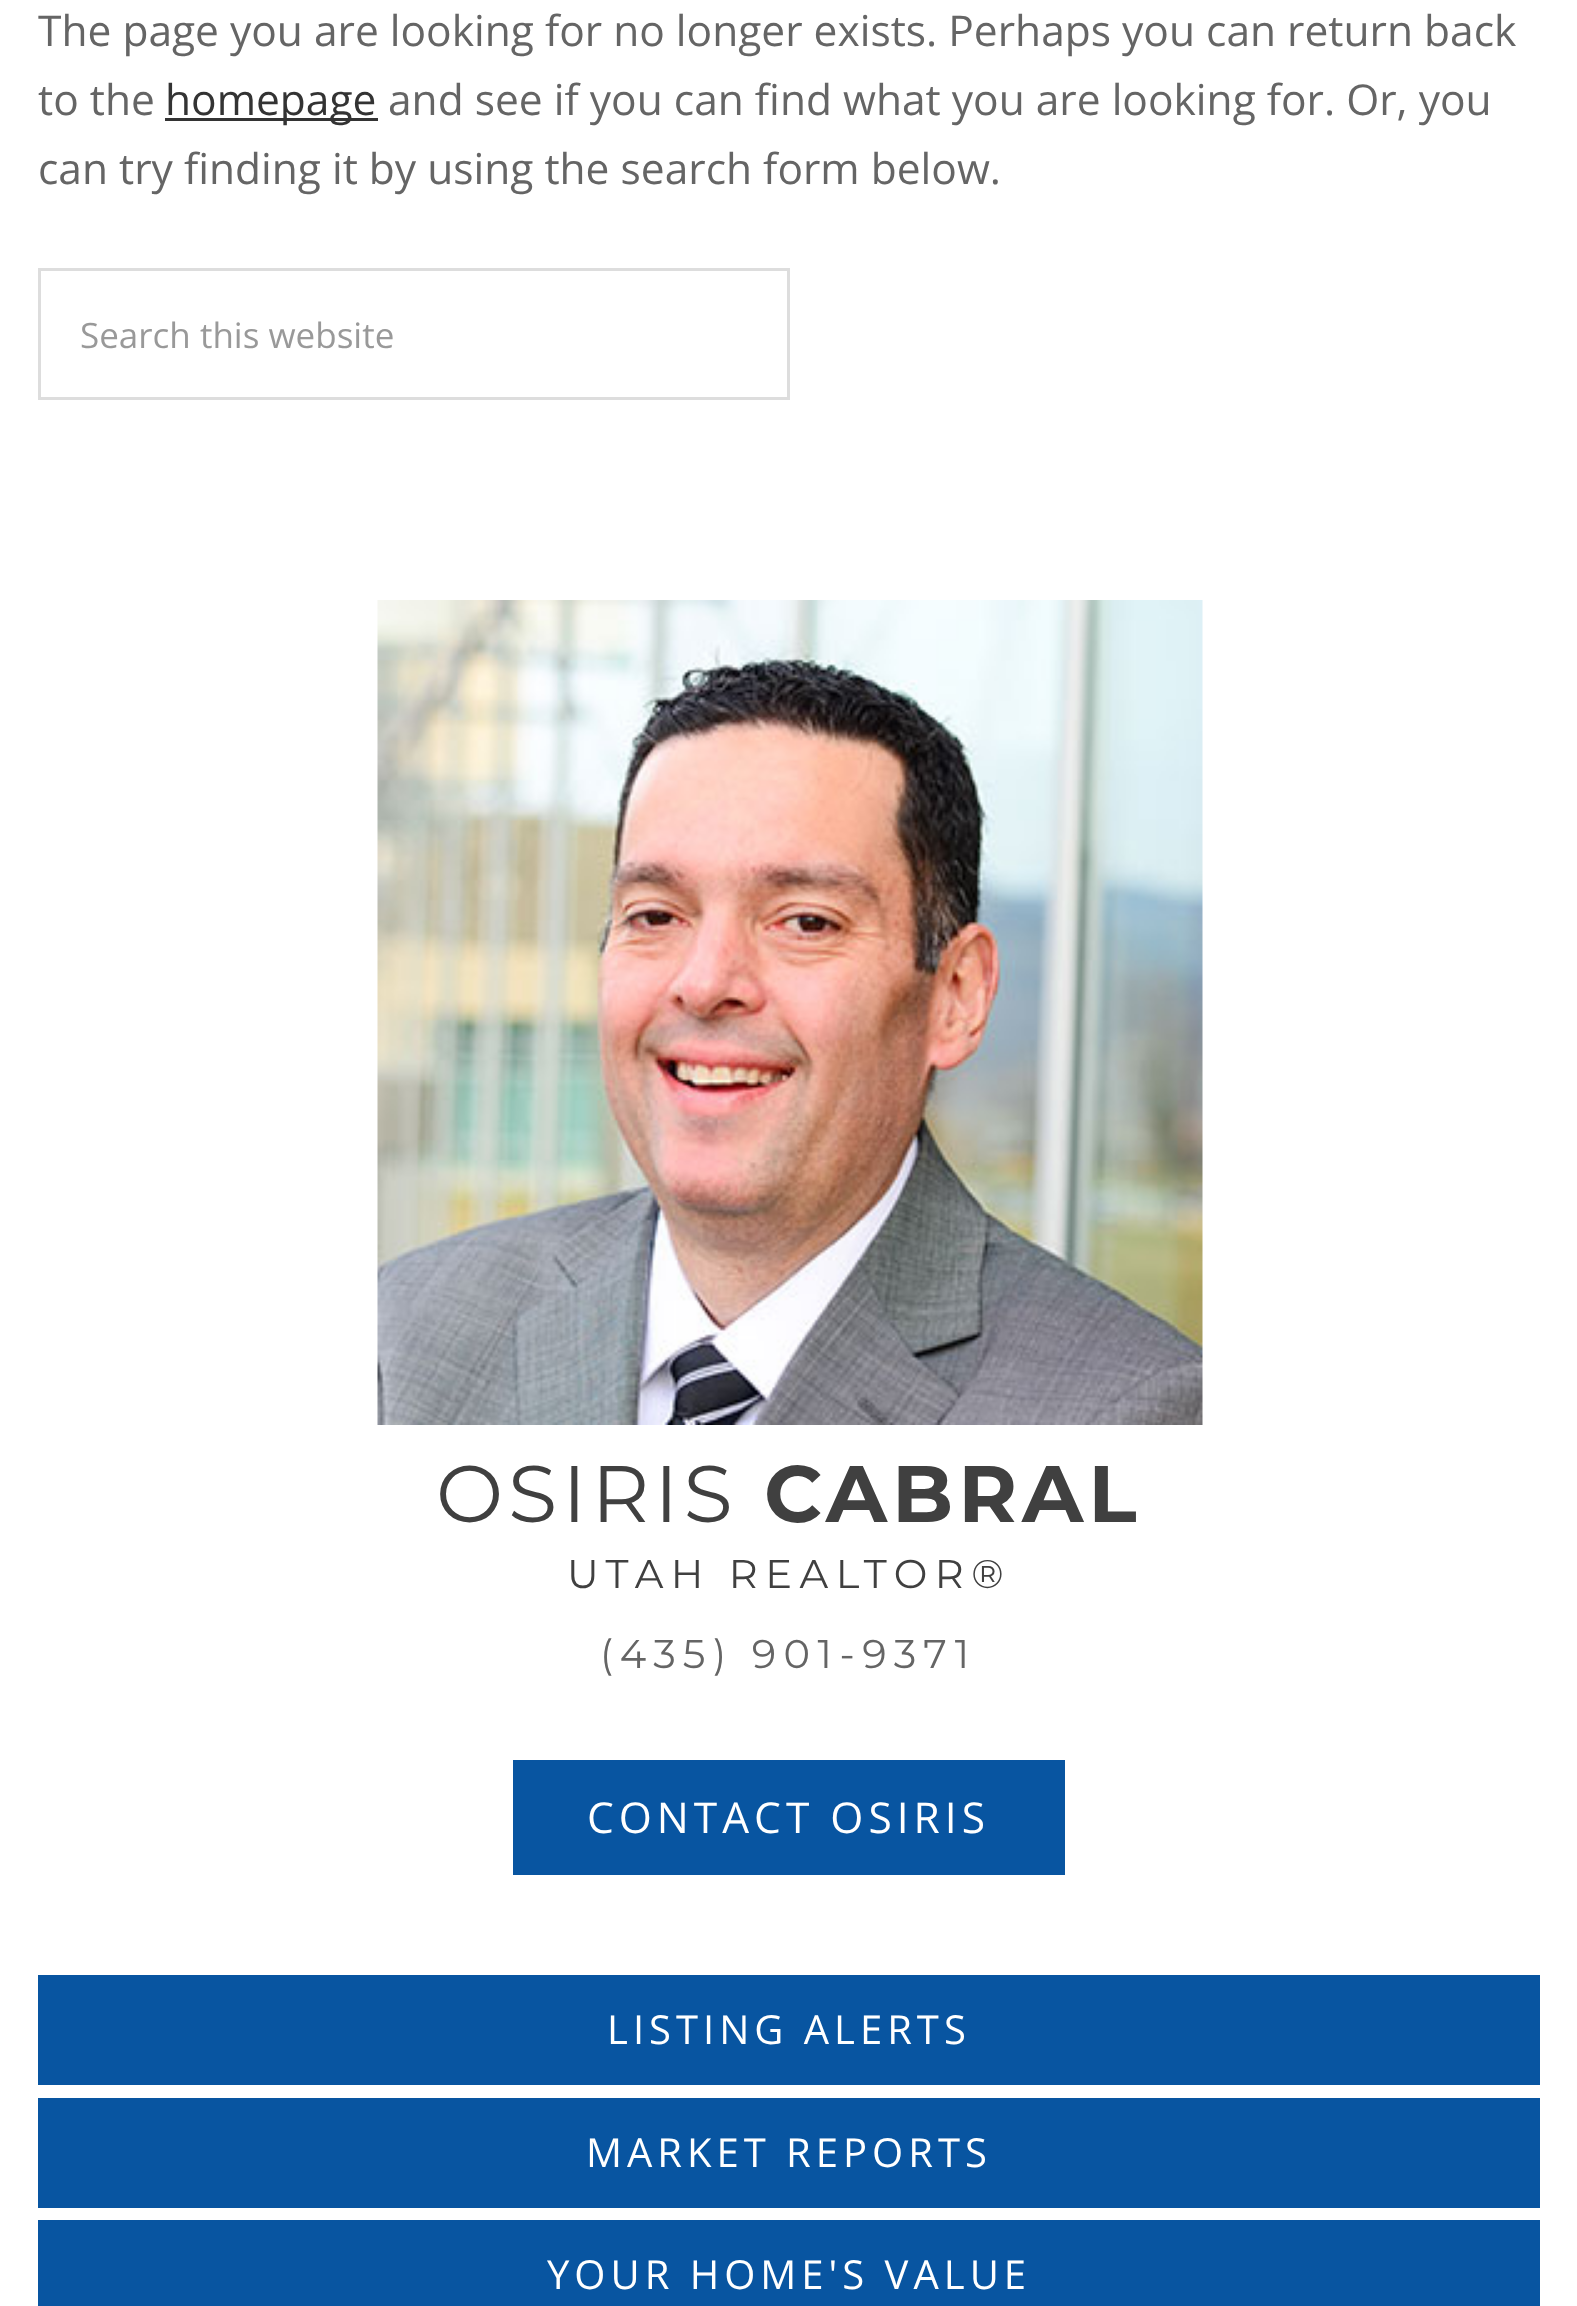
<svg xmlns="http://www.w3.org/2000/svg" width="1577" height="2306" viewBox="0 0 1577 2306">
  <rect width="100%" height="100%" fill="#ffffff"/>
  <text x="38" y="46" font-family="Open Sans" font-size="42.5" fill="#656565">The page you are looking for no longer exists. Perhaps you can return back</text>
  <text x="38" y="115" font-family="Open Sans" font-size="42.5" fill="#656565">to the</text>
  <rect x="165" y="118" width="213" height="3" fill="#333333"/>
  <text x="165" y="115" font-family="Open Sans" font-size="42.5" fill="#333333">homepage</text>
  <text x="388" y="115" font-family="Open Sans" font-size="42.5" fill="#656565">and see if you can find what you are looking for. Or, you</text>
  <text x="38" y="184" font-family="Open Sans" font-size="42.5" fill="#656565">can try finding it by using the search form below.</text>
  <rect x="39.5" y="269.5" width="749" height="129" fill="none" stroke="#dddddd" stroke-width="3"/>
  <text x="80" y="348" font-family="Open Sans" font-size="35" fill="#999999">Search this website</text>
  <image x="377" y="600" width="826" height="825" href="img1.png"/>
  <text x="436" y="1522" font-family="Montserrat" font-size="80" letter-spacing="5" fill="#404040">OSIRIS</text>
  <text x="764" y="1522" font-family="Montserrat" font-size="80" font-weight="bold" letter-spacing="5" fill="#404040">CABRAL</text>
  <text x="567" y="1588" font-family="Montserrat" font-size="40" letter-spacing="7.5" fill="#404040">UTAH REALTOR®</text>
  <text x="600" y="1668" font-family="Montserrat" font-size="40" letter-spacing="7.5" fill="#656565">(435) 901-9371</text>
  <rect x="513" y="1760" width="552" height="115" fill="#0855a1"/>
  <text x="587" y="1833" font-family="Open Sans" font-size="42.5" letter-spacing="5" fill="#ffffff">CONTACT OSIRIS</text>
  <rect x="38" y="1975" width="1502" height="110" fill="#0855a1"/>
  <text x="607" y="2044" font-family="Open Sans" font-size="40" letter-spacing="5" fill="#ffffff">LISTING ALERTS</text>
  <rect x="38" y="2098" width="1502" height="110" fill="#0855a1"/>
  <text x="586" y="2167" font-family="Open Sans" font-size="40" letter-spacing="5" fill="#ffffff">MARKET REPORTS</text>
  <rect x="38" y="2220" width="1502" height="86" fill="#0855a1"/>
  <text x="547" y="2289" font-family="Open Sans" font-size="40" letter-spacing="5" fill="#ffffff">YOUR HOME'S VALUE</text>
</svg>
